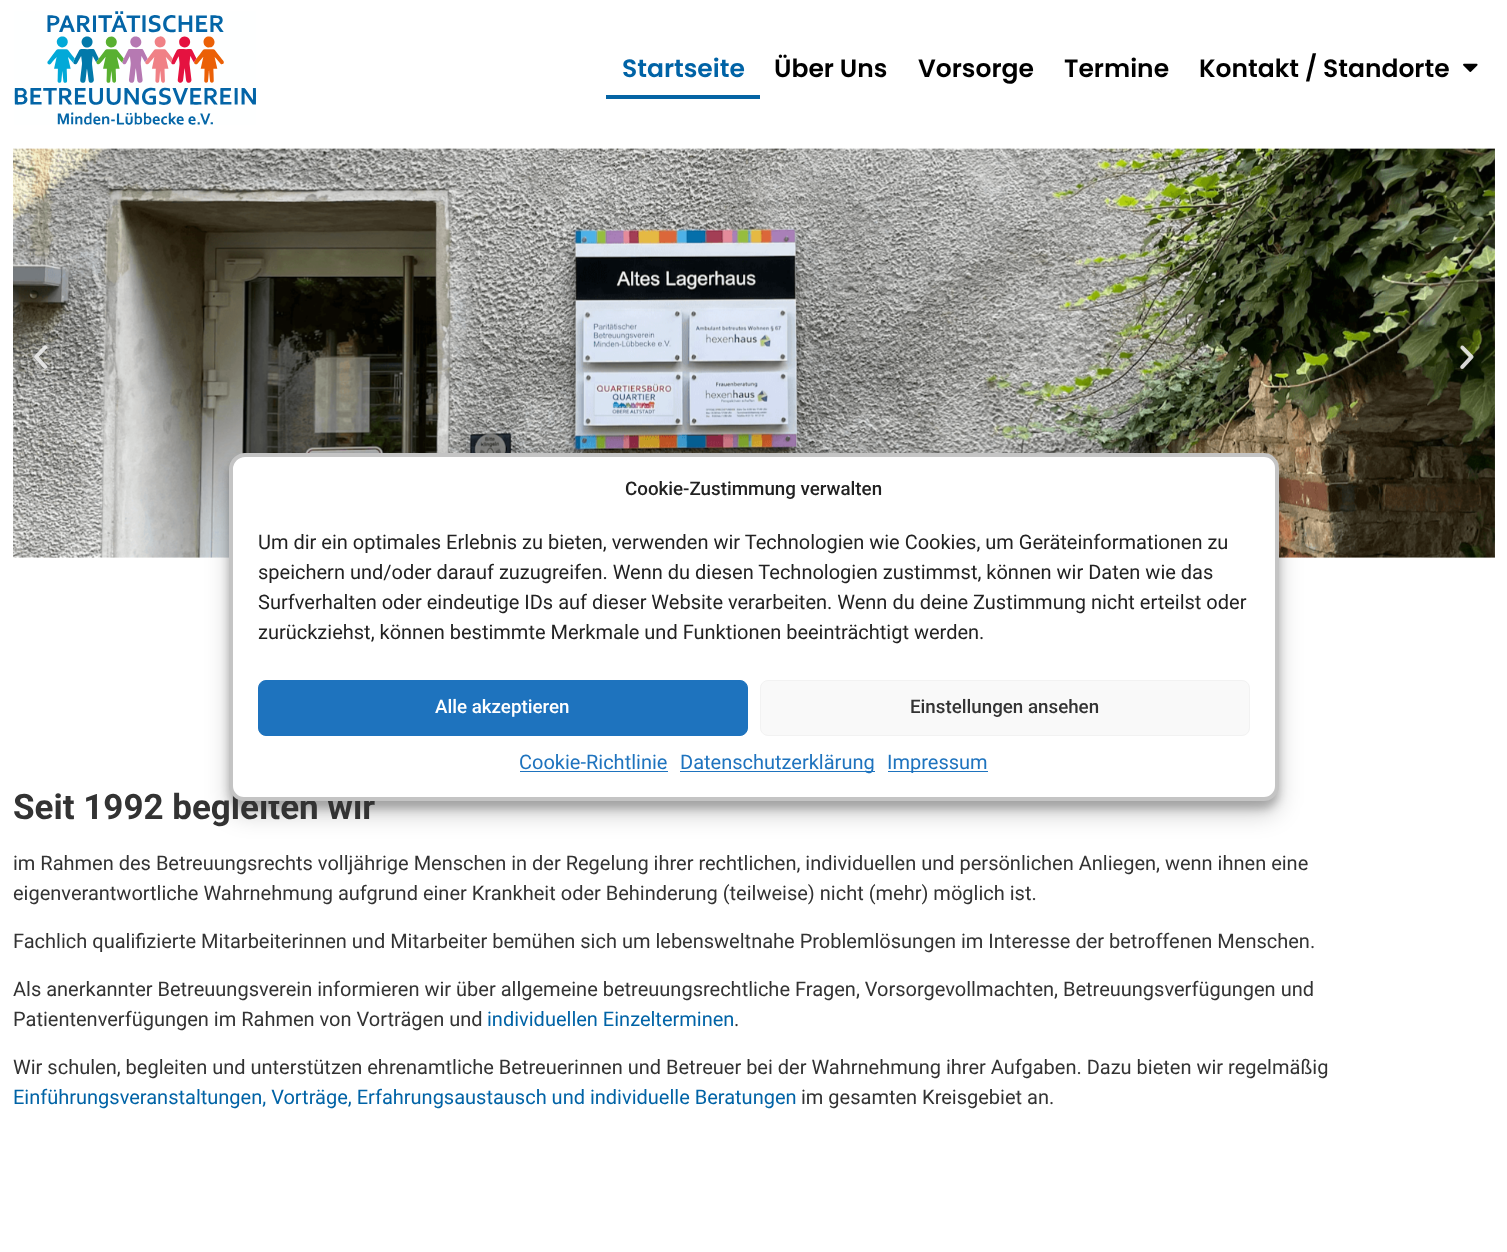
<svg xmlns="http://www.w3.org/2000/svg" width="1507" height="1252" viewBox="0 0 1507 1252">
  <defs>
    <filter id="blur1" x="-50%" y="-200%" width="200%" height="500%"><feGaussianBlur stdDeviation="4"/></filter>
    <filter id="blur2" x="-50%" y="-200%" width="200%" height="500%"><feGaussianBlur stdDeviation="12.5"/></filter>
  </defs>
  <rect width="100%" height="100%" fill="#ffffff"/>
  <image x="14" y="11" width="242" height="114" href="img1.png"/>
  <text x="622" y="77" font-family="Poppins" font-size="25" font-weight="600" fill="#0063a6">Startseite</text>
  <rect x="606" y="95" width="154" height="4" fill="#0464a4"/>
  <text x="774" y="77" font-family="Poppins" font-size="25" font-weight="600" fill="#000000">Über Uns</text>
  <text x="918" y="77" font-family="Poppins" font-size="25" font-weight="600" fill="#000000">Vorsorge</text>
  <text x="1064" y="77" font-family="Poppins" font-size="25" font-weight="600" fill="#000000">Termine</text>
  <text x="1199" y="77" font-family="Poppins" font-size="25" font-weight="600" fill="#000000">Kontakt / Standorte</text>
  <image x="1463" y="63" width="15" height="9" href="img2.png"/>
  <image x="13" y="148" width="1482" height="410" href="img3.png"/>
  <rect x="229" y="460" width="1050" height="349" rx="16" fill="#000000" fill-opacity="0.23" filter="url(#blur1)"/>
  <rect x="229" y="465" width="1050" height="349" rx="16" fill="#000000" fill-opacity="0.19" filter="url(#blur2)"/>
  <text x="13" y="819" font-family="Roboto" font-size="35" font-weight="bold" fill="#333333">Seit 1992 begleiten wir</text>
  <path d="M245 455H1264C1271 455 1277 461 1277 468V786C1277 793 1271 799 1264 799H244C237 799 231 793 231 786V469C231 461.5 237.5 455 245 455Z" fill="#ffffff" stroke="#c4c4c4" stroke-width="4"/>
  <text x="625" y="495" font-family="Roboto" font-size="18.75" font-weight="500" fill="#222222">Cookie-Zustimmung verwalten</text>
  <text x="258" y="549" font-family="Roboto" font-size="20" fill="#222222">Um dir ein optimales Erlebnis zu bieten, verwenden wir Technologien wie Cookies, um Geräteinformationen zu</text>
  <text x="258" y="579" font-family="Roboto" font-size="20" fill="#222222">speichern und/oder darauf zuzugreifen. Wenn du diesen Technologien zustimmst, können wir Daten wie das</text>
  <text x="258" y="609" font-family="Roboto" font-size="20" fill="#222222">Surfverhalten oder eindeutige IDs auf dieser Website verarbeiten. Wenn du deine Zustimmung nicht erteilst oder</text>
  <text x="258" y="639" font-family="Roboto" font-size="20" fill="#222222">zurückziehst, können bestimmte Merkmale und Funktionen beeinträchtigt werden.</text>
  <rect x="258.5" y="680.5" width="489" height="55" rx="7.5" fill="#1e73be" stroke="#1e73be"/>
  <text x="435" y="713" font-family="Roboto" font-size="18.75" font-weight="500" fill="#ffffff">Alle akzeptieren</text>
  <rect x="760.5" y="680.5" width="489" height="55" rx="7.5" fill="#f9f9f9" stroke="#f2f2f2"/>
  <text x="910" y="713" font-family="Roboto" font-size="18.75" font-weight="500" fill="#333333">Einstellungen ansehen</text>
  <text x="519" y="769" font-family="Roboto" font-size="20" fill="#1e73be">Cookie-Richtlinie</text>
  <rect x="520" y="771" width="148" height="1" fill="#1e73be"/>
  <rect x="680" y="771" width="195" height="1" fill="#1e73be"/>
  <text x="680" y="769" font-family="Roboto" font-size="20" fill="#1e73be">Datenschutzerklärung</text>
  <rect x="888" y="771" width="100" height="1" fill="#1e73be"/>
  <text x="887" y="769" font-family="Roboto" font-size="20" fill="#1e73be">Impressum</text>
  <image x="34" y="345" width="14" height="24" href="img4.png"/>
  <image x="1460" y="345" width="14" height="24" href="img5.png"/>
  <text x="13" y="870" font-family="Roboto" font-size="20" fill="#333333">im Rahmen des Betreuungsrechts volljährige Menschen in der Regelung ihrer rechtlichen, individuellen und persönlichen Anliegen, wenn ihnen eine</text>
  <text x="13" y="900" font-family="Roboto" font-size="20" fill="#333333">eigenverantwortliche Wahrnehmung aufgrund einer Krankheit oder Behinderung (teilweise) nicht (mehr) möglich ist.</text>
  <text x="13" y="948" font-family="Roboto" font-size="20" fill="#333333">Fachlich qualifizierte Mitarbeiterinnen und Mitarbeiter bemühen sich um lebensweltnahe Problemlösungen im Interesse der betroffenen Menschen.</text>
  <text x="13" y="996" font-family="Roboto" font-size="20" fill="#333333">Als anerkannter Betreuungsverein informieren wir über allgemeine betreuungsrechtliche Fragen, Vorsorgevollmachten, Betreuungsverfügungen und</text>
  <text x="13" y="1026" font-family="Roboto" font-size="20" fill="#333333">Patientenverfügungen im Rahmen von Vorträgen und</text>
  <text x="487" y="1026" font-family="Roboto" font-size="20" fill="#0063a6">individuellen Einzelterminen</text>
  <text x="734" y="1026" font-family="Roboto" font-size="20" fill="#333333">.</text>
  <text x="13" y="1074" font-family="Roboto" font-size="20" fill="#333333">Wir schulen, begleiten und unterstützen ehrenamtliche Betreuerinnen und Betreuer bei der Wahrnehmung ihrer Aufgaben. Dazu bieten wir regelmäßig</text>
  <text x="13" y="1104" font-family="Roboto" font-size="20" fill="#0063a6">Einführungsveranstaltungen, Vorträge, Erfahrungsaustausch und individuelle Beratungen</text>
  <text x="801" y="1104" font-family="Roboto" font-size="20" fill="#333333">im gesamten Kreisgebiet an.</text>
</svg>
